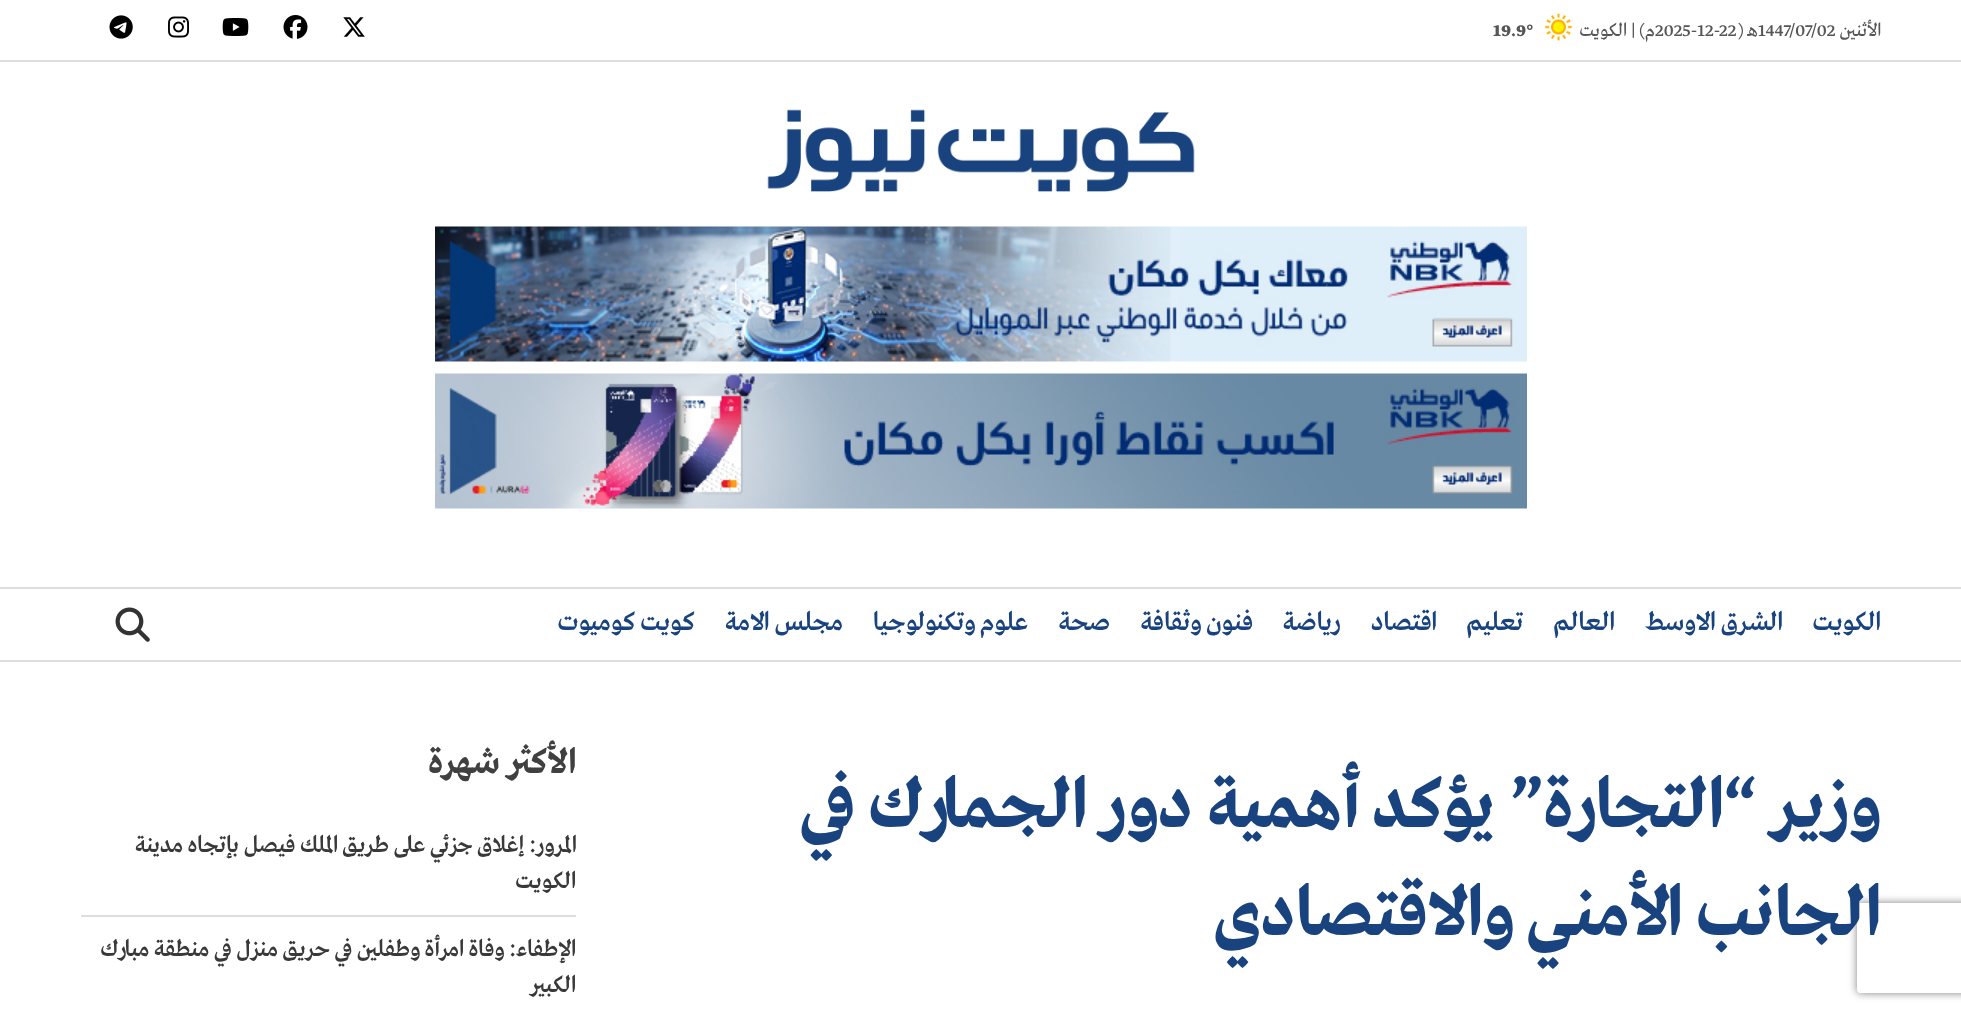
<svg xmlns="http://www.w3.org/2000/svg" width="1961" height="1013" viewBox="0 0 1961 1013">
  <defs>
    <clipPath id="clip1"><path d="M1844 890H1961V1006H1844ZM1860 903H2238C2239.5 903 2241 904.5 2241 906V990C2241 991.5 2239.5 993 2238 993H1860C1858.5 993 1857 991.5 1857 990V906C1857 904.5 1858.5 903 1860 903Z" clip-rule="evenodd"/></clipPath>
    <filter id="blur1" x="-50%" y="-200%" width="200%" height="500%"><feGaussianBlur stdDeviation="4"/></filter>
  </defs>
  <rect width="100%" height="100%" fill="#ffffff"/>
  <g clip-path="url(#clip1)">
    <rect x="1857" y="903" width="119" height="90" rx="3" fill="#808080" filter="url(#blur1)"/>
  </g>
  <rect x="0" y="60" width="1961" height="2" fill="#dcdfdf"/>
  <text x="1881" y="36" font-family="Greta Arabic" font-size="19.5" direction="rtl" fill="#565656">الأثنين</text>
  <text x="1758" y="36" font-family="Greta Arabic" font-size="19.5" fill="#565656">1447/07/02</text>
  <text x="1758" y="36" font-family="Greta Arabic" font-size="19.5" direction="rtl" fill="#565656">هـ (</text>
  <text x="1655" y="36" font-family="Greta Arabic" font-size="19.5" fill="#565656">2025-12-22</text>
  <text x="1655" y="36" font-family="Greta Arabic" font-size="19.5" direction="rtl" fill="#565656">م) | الكويت</text>
  <image x="1545" y="13" width="27" height="28" href="img1.png"/>
  <text x="1493" y="36" font-family="Greta Arabic" font-size="19.5" font-weight="bold" fill="#565656">19.9°</text>
  <image x="343" y="17" width="22" height="20" href="img2.png"/>
  <image x="283" y="15" width="25" height="24" href="img3.png"/>
  <image x="222" y="18" width="27" height="18" href="img4.png"/>
  <image x="168" y="16" width="21" height="22" href="img5.png"/>
  <image x="109" y="15" width="24" height="24" href="img6.png"/>
  <image x="767" y="109" width="428" height="83" href="img7.png"/>
  <image x="435" y="226" width="1092" height="136" href="img8.png"/>
  <image x="435" y="373" width="1092" height="136" href="img9.png"/>
  <rect x="0" y="587" width="1961" height="2" fill="#dcdfdf"/>
  <rect x="0" y="660" width="1961" height="2" fill="#dcdfdf"/>
  <text x="1881" y="630" font-family="Greta Arabic" font-size="27" font-weight="500" direction="rtl" fill="#19437f">الكويت</text>
  <text x="1783" y="630" font-family="Greta Arabic" font-size="27" font-weight="500" direction="rtl" fill="#19437f">الشرق الاوسط</text>
  <text x="1615" y="630" font-family="Greta Arabic" font-size="27" font-weight="500" direction="rtl" fill="#19437f">العالم</text>
  <text x="1523" y="630" font-family="Greta Arabic" font-size="27" font-weight="500" direction="rtl" fill="#19437f">تعليم</text>
  <text x="1437" y="630" font-family="Greta Arabic" font-size="27" font-weight="500" direction="rtl" fill="#19437f">اقتصاد</text>
  <text x="1341" y="630" font-family="Greta Arabic" font-size="27" font-weight="500" direction="rtl" fill="#19437f">رياضة</text>
  <text x="1253" y="630" font-family="Greta Arabic" font-size="27" font-weight="500" direction="rtl" fill="#19437f">فنون وثقافة</text>
  <text x="1110" y="630" font-family="Greta Arabic" font-size="27" font-weight="500" direction="rtl" fill="#19437f">صحة</text>
  <text x="1028" y="630" font-family="Greta Arabic" font-size="27" font-weight="500" direction="rtl" fill="#19437f">علوم وتكنولوجيا</text>
  <text x="843" y="630" font-family="Greta Arabic" font-size="27" font-weight="500" direction="rtl" fill="#19437f">مجلس الامة</text>
  <text x="695" y="630" font-family="Greta Arabic" font-size="27" font-weight="500" direction="rtl" fill="#19437f">كويت كوميوت</text>
  <image x="115" y="607" width="35" height="35" href="img10.png"/>
  <text x="1881" y="827" font-family="Greta Arabic" font-size="72" font-weight="bold" direction="rtl" fill="#19437f">وزير “التجارة” يؤكد أهمية دور الجمارك في</text>
  <text x="1881" y="935" font-family="Greta Arabic" font-size="72" font-weight="bold" direction="rtl" fill="#19437f">الجانب الأمني والاقتصادي</text>
  <text x="576" y="773" font-family="Greta Arabic" font-size="36" font-weight="bold" direction="rtl" fill="#404040">الأكثر شهرة</text>
  <rect x="81" y="915" width="495" height="2" fill="#dcdfdf"/>
  <text x="576" y="852" font-family="Greta Arabic" font-size="24" font-weight="500" direction="rtl" fill="#393939">المرور: إغلاق جزئي على طريق الملك فيصل بإتجاه مدينة</text>
  <text x="576" y="888" font-family="Greta Arabic" font-size="24" font-weight="500" direction="rtl" fill="#393939">الكويت</text>
  <text x="576" y="956" font-family="Greta Arabic" font-size="24" font-weight="500" direction="rtl" fill="#393939">الإطفاء: وفاة امرأة وطفلين في حريق منزل في منطقة مبارك</text>
  <text x="576" y="992" font-family="Greta Arabic" font-size="24" font-weight="500" direction="rtl" fill="#393939">الكبير</text>
</svg>
